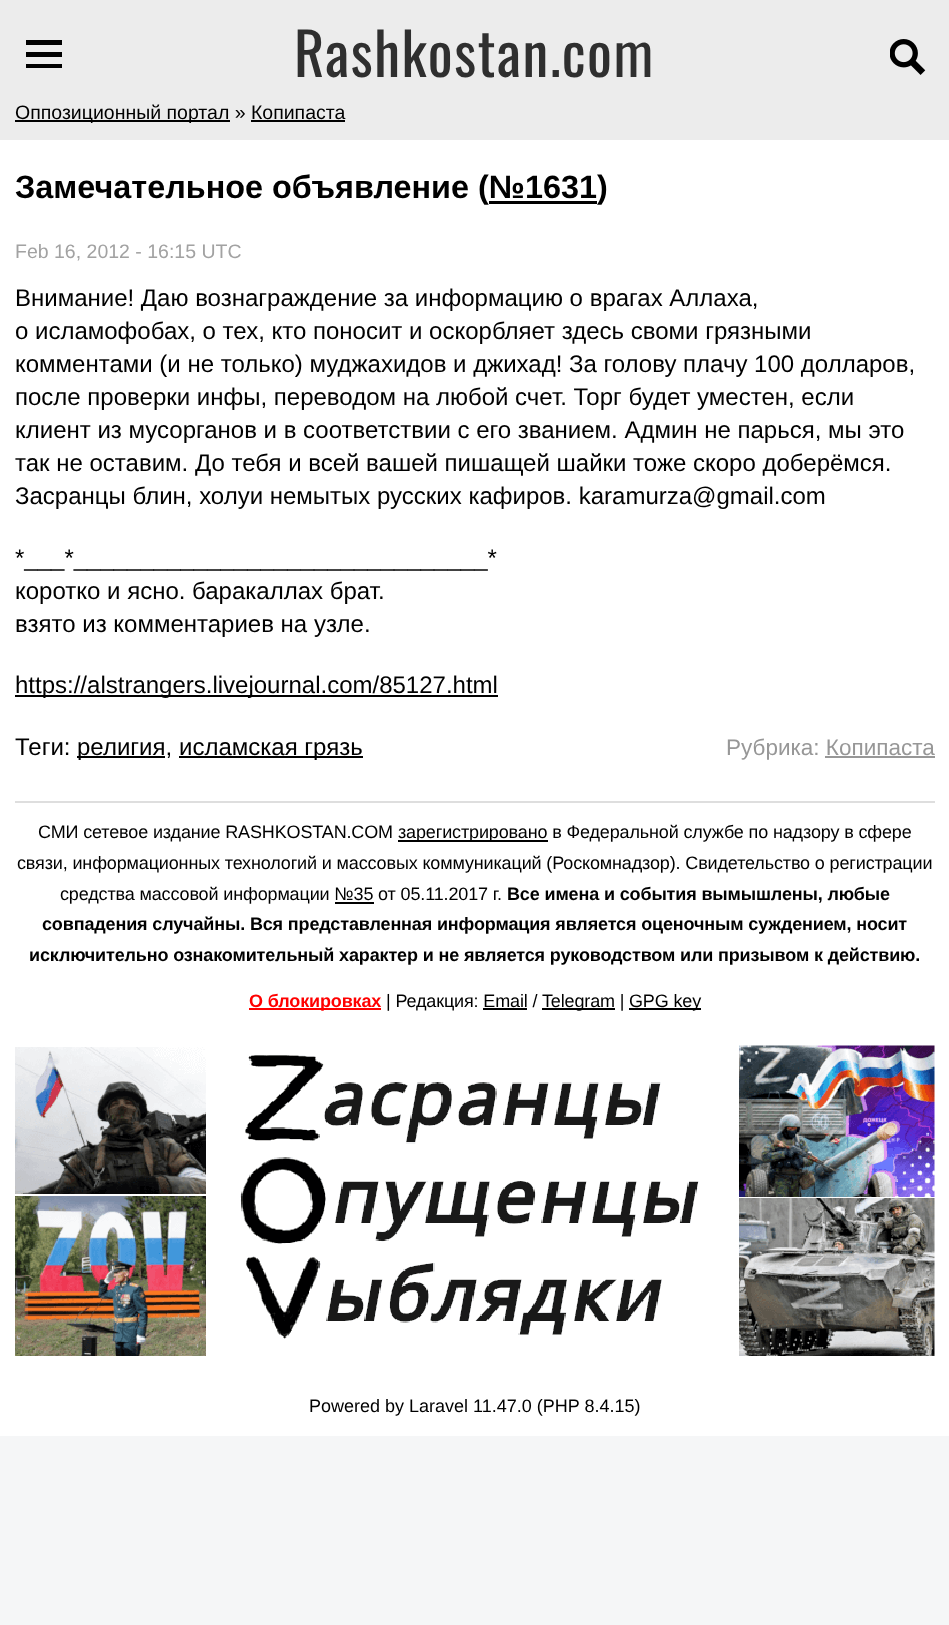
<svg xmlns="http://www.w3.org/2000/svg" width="949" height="1625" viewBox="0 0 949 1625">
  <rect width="100%" height="100%" fill="#f5f6f7"/>
  <rect x="0" y="140" width="949" height="1296" fill="#ffffff"/>
  <rect x="0" y="0" width="949" height="140" fill="#ececec"/>
  <rect x="26" y="40" width="36" height="5" fill="#000000"/>
  <rect x="26" y="52" width="36" height="5" fill="#000000"/>
  <rect x="26" y="64" width="36" height="4" fill="#000000"/>
  <text x="294" y="77" font-family="Oswald" font-size="58.5" letter-spacing="1.5" fill="#2f2f2f">Rashkostan.com</text>
  <image x="890" y="39" width="36" height="36" href="img1.png"/>
  <rect x="15" y="120" width="215" height="2" fill="#000000"/>
  <text x="15" y="119" font-family="Liberation Sans" font-size="19.5" fill="#000000">Оппозиционный портал » Копипаста</text>
  <rect x="251" y="120" width="94" height="2" fill="#000000"/>
  <text x="15" y="198" font-family="Liberation Sans" font-size="32.4" font-weight="bold" fill="#000000">Замечательное объявление (№1631)</text>
  <rect x="489" y="201" width="108" height="3" fill="#000000"/>
  <rect x="15" y="801" width="920" height="2" fill="#dedede"/>
  <text x="15" y="258" font-family="Liberation Sans" font-size="19.5" fill="#a2a2a2">Feb 16, 2012 - 16:15 UTC</text>
  <text x="15" y="306" font-family="Liberation Sans" font-size="24" fill="#000000">Внимание! Даю вознаграждение за информацию о врагах Аллаха,</text>
  <text x="15" y="339" font-family="Liberation Sans" font-size="24" fill="#000000">о исламофобах, о тех, кто поносит и оскорбляет здесь своми грязными</text>
  <text x="15" y="372" font-family="Liberation Sans" font-size="24" fill="#000000">комментами (и не только) муджахидов и джихад! За голову плачу 100 долларов,</text>
  <text x="15" y="405" font-family="Liberation Sans" font-size="24" fill="#000000">после проверки инфы, переводом на любой счет. Торг будет уместен, если</text>
  <text x="15" y="438" font-family="Liberation Sans" font-size="24" fill="#000000">клиент из мусорганов и в соответствии с его званием. Админ не парься, мы это</text>
  <text x="15" y="471" font-family="Liberation Sans" font-size="24" fill="#000000">так не оставим. До тебя и всей вашей пишащей шайки тоже скоро доберёмся.</text>
  <text x="15" y="504" font-family="Liberation Sans" font-size="24" fill="#000000">Засранцы блин, холуи немытых русских кафиров. karamurza@gmail.com</text>
  <text x="15" y="566" font-family="Liberation Sans" font-size="24" fill="#000000">*___*_______________________________*</text>
  <text x="15" y="599" font-family="Liberation Sans" font-size="24" fill="#000000">коротко и ясно. баракаллах брат.</text>
  <text x="15" y="632" font-family="Liberation Sans" font-size="24" fill="#000000">взято из комментариев на узле.</text>
  <rect x="15" y="695" width="483" height="2" fill="#000000"/>
  <text x="15" y="693" font-family="Liberation Sans" font-size="24" fill="#000000">https://alstrangers.livejournal.com/85127.html</text>
  <text x="15" y="755" font-family="Liberation Sans" font-size="24" fill="#000000">Теги:</text>
  <rect x="77" y="756" width="88" height="2" fill="#000000"/>
  <text x="77" y="755" font-family="Liberation Sans" font-size="24" fill="#000000">религия,</text>
  <rect x="179" y="756" width="184" height="2" fill="#000000"/>
  <text x="179" y="755" font-family="Liberation Sans" font-size="24" fill="#000000">исламская грязь</text>
  <text x="726" y="755" font-family="Liberation Sans" font-size="22.5" fill="#979797">Рубрика: Копипаста</text>
  <rect x="825" y="756" width="110" height="2" fill="#979797"/>
  <text x="38" y="838" font-family="Liberation Sans" font-size="18" letter-spacing="-0.14" fill="#000000">СМИ сетевое издание RASHKOSTAN.COM</text>
  <rect x="398" y="840" width="150" height="2" fill="#000000"/>
  <text x="398" y="838" font-family="Liberation Sans" font-size="18" letter-spacing="-0.14" fill="#000000">зарегистрировано в Федеральной службе по надзору в сфере</text>
  <text x="17" y="869" font-family="Liberation Sans" font-size="18" letter-spacing="-0.14" fill="#000000">связи, информационных технологий и массовых коммуникаций (Роскомнадзор). Свидетельство о регистрации</text>
  <text x="60" y="900" font-family="Liberation Sans" font-size="18" letter-spacing="-0.14" fill="#000000">средства массовой информации №35 от 05.11.2017 г.</text>
  <text x="507" y="900" font-family="Liberation Sans" font-size="18" font-weight="bold" letter-spacing="-0.14" fill="#000000">Все имена и события вымышлены, любые</text>
  <rect x="335" y="902" width="39" height="2" fill="#000000"/>
  <text x="42" y="930" font-family="Liberation Sans" font-size="18" font-weight="bold" letter-spacing="-0.14" fill="#000000">совпадения случайны. Вся представленная информация является оценочным суждением, носит</text>
  <text x="29" y="961" font-family="Liberation Sans" font-size="18" font-weight="bold" letter-spacing="-0.14" fill="#000000">исключительно ознакомительный характер и не является руководством или призывом к действию.</text>
  <rect x="249" y="1008" width="132" height="2" fill="#ff0000"/>
  <text x="249" y="1007" font-family="Liberation Sans" font-size="18" font-weight="bold" letter-spacing="-0.14" fill="#ff0000">О блокировках</text>
  <text x="386" y="1007" font-family="Liberation Sans" font-size="18" letter-spacing="-0.14" fill="#000000">| Редакция: Email /</text>
  <rect x="542" y="1008" width="73" height="2" fill="#000000"/>
  <text x="542" y="1007" font-family="Liberation Sans" font-size="18" letter-spacing="-0.14" fill="#000000">Telegram |</text>
  <rect x="629" y="1008" width="72" height="2" fill="#000000"/>
  <text x="629" y="1007" font-family="Liberation Sans" font-size="18" letter-spacing="-0.14" fill="#000000">GPG key</text>
  <rect x="483" y="1008" width="44" height="2" fill="#000000"/>
  <image x="15" y="1045" width="920" height="311" href="img2.png"/>
  <text x="309" y="1412" font-family="Liberation Sans" font-size="18" fill="#000000">Powered by Laravel 11.47.0 (PHP 8.4.15)</text>
</svg>
